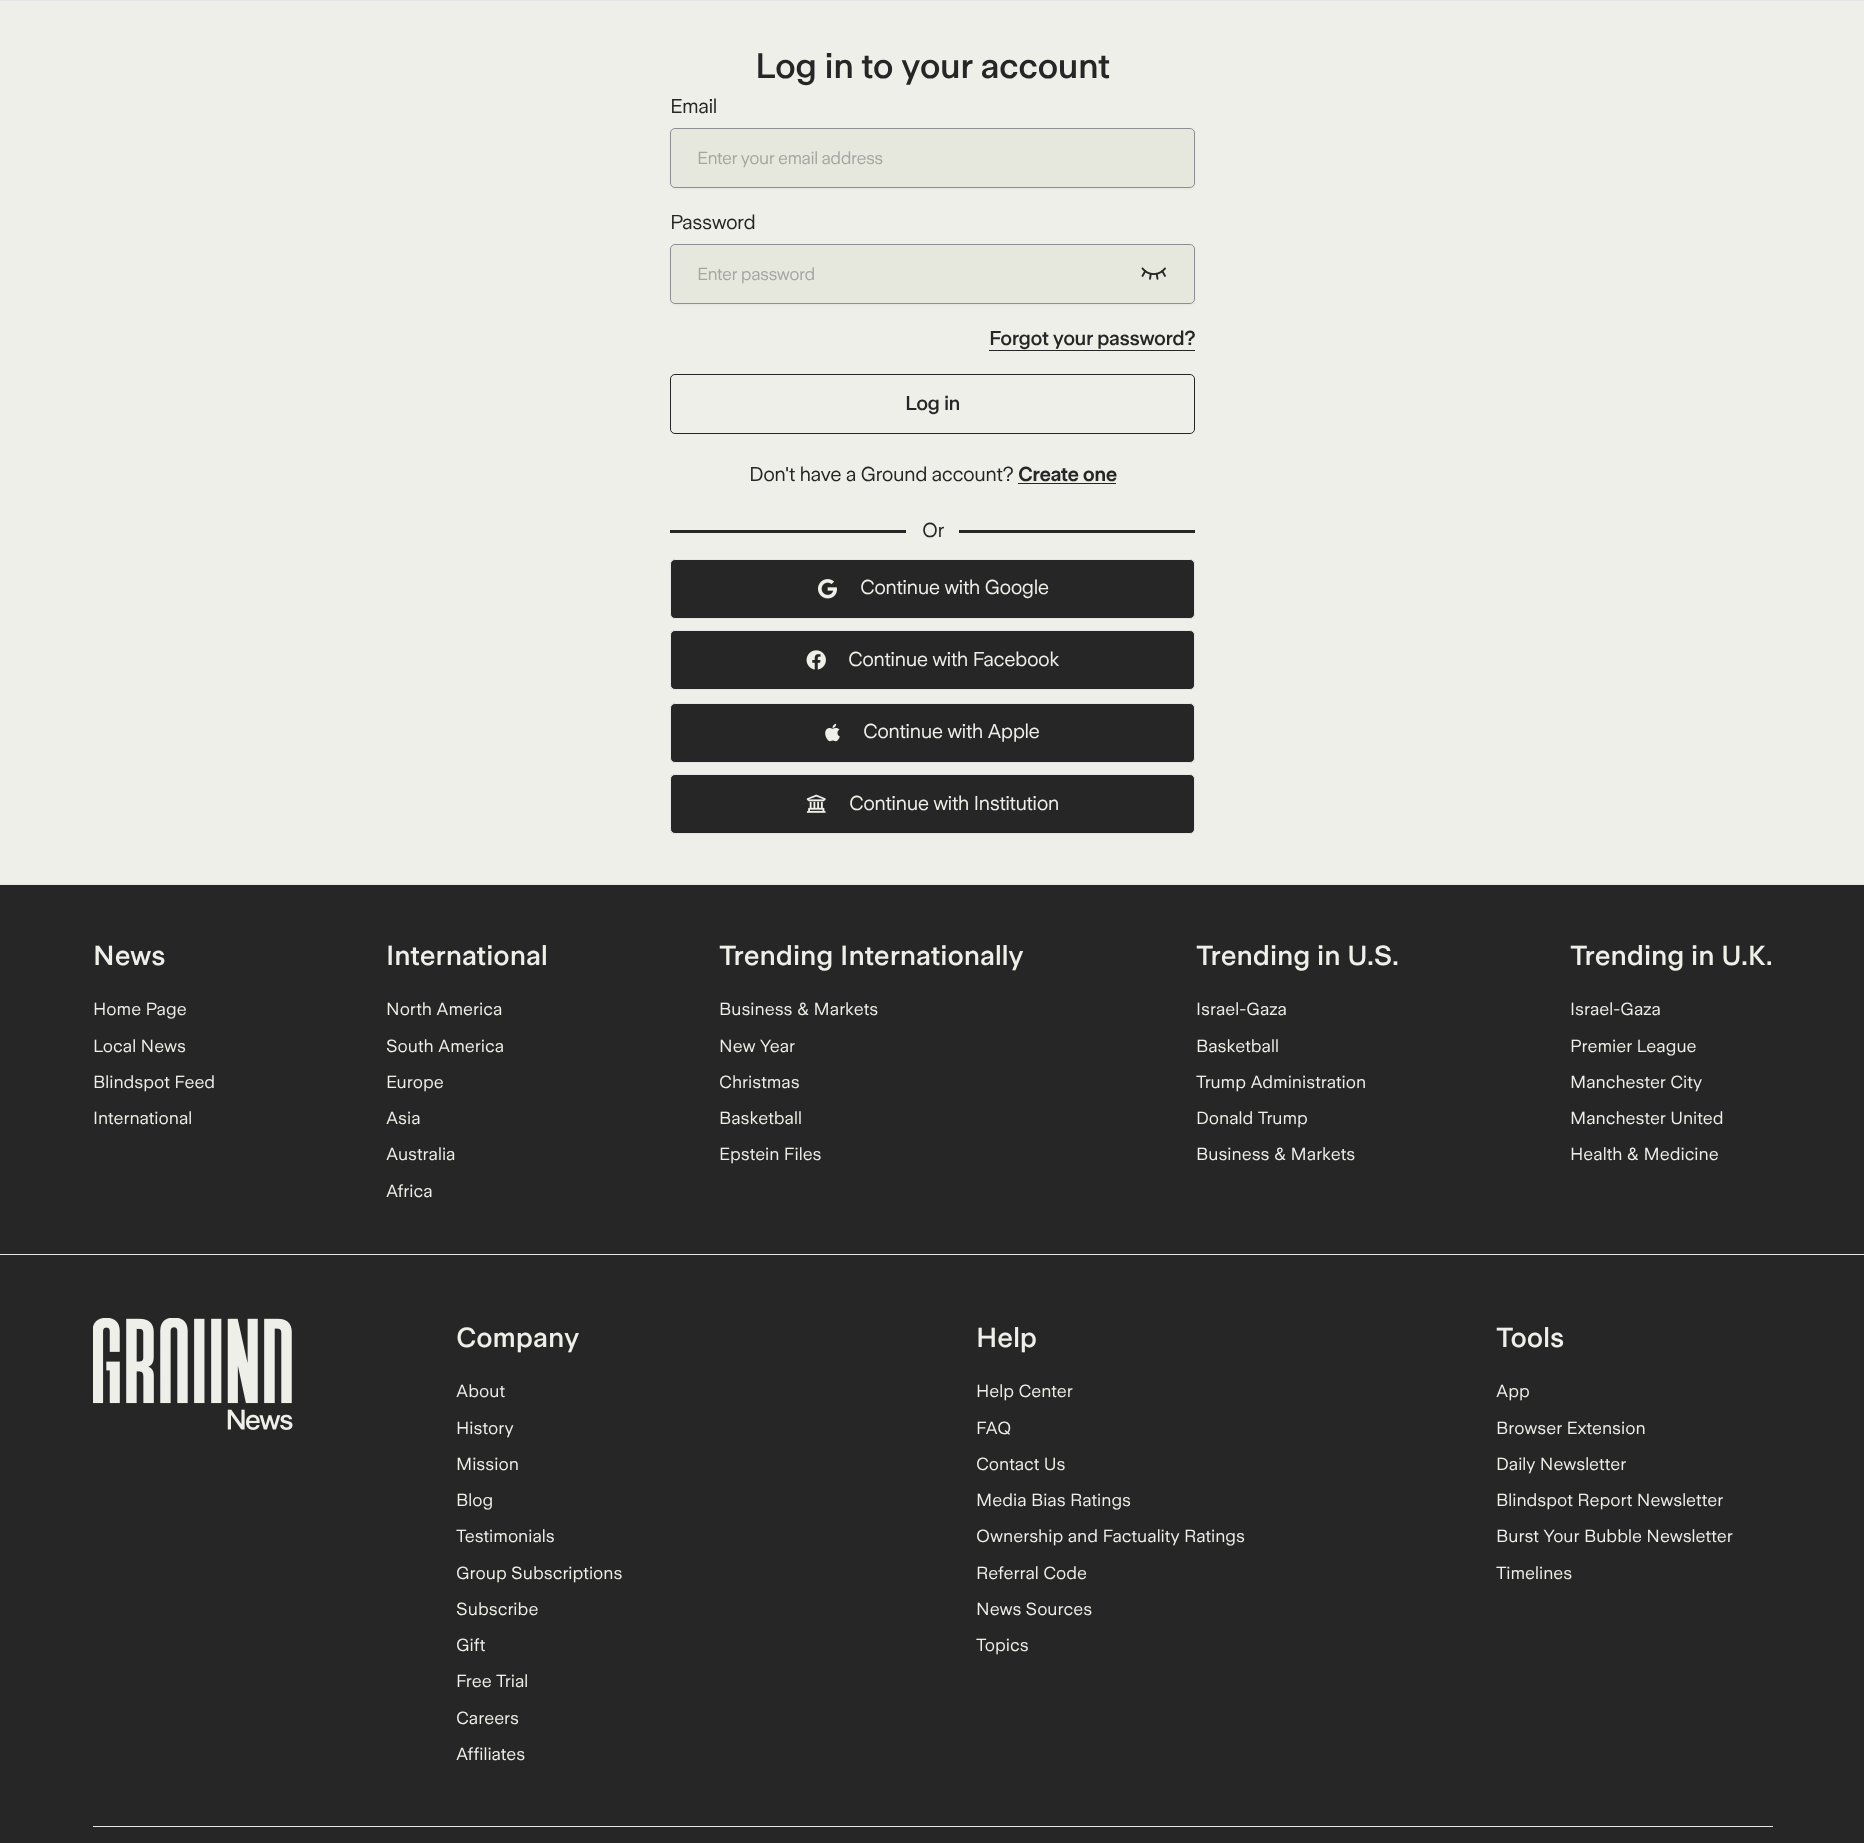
<svg xmlns="http://www.w3.org/2000/svg" width="1864" height="1843" viewBox="0 0 1864 1843">
  <defs>
    <filter id="blur1" x="-50%" y="-200%" width="200%" height="500%"><feGaussianBlur stdDeviation="1"/></filter>
  </defs>
  <rect width="100%" height="100%" fill="#eeefe9"/>
  <rect x="0" y="0" width="1864" height="1" fill="#e5e5e5"/>
  <text x="755" y="78" font-family="'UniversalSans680'" font-size="35" font-weight="bold" letter-spacing="-0.5" fill="#262626">Log in to your account</text>
  <text x="670" y="113" font-family="'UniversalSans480'" font-size="20" font-weight="500" letter-spacing="-0.5" fill="#262626">Email</text>
  <rect x="670" y="129" width="525" height="60" rx="5" fill="#000000" fill-opacity="0.05" filter="url(#blur1)"/>
  <rect x="670.5" y="128.5" width="524" height="59" rx="4.5" fill="#e6e8de" stroke="#8f8e94"/>
  <text x="697" y="164" font-family="'UniversalSans480'" font-size="17.5" font-weight="500" letter-spacing="-0.5" fill="#a6a6a1">Enter your email address</text>
  <text x="670" y="229" font-family="'UniversalSans480'" font-size="20" font-weight="500" letter-spacing="-0.5" fill="#262626">Password</text>
  <rect x="670" y="245" width="525" height="60" rx="5" fill="#000000" fill-opacity="0.05" filter="url(#blur1)"/>
  <rect x="670.5" y="244.5" width="524" height="59" rx="4.5" fill="#e6e8de" stroke="#8f8e94"/>
  <text x="697" y="280" font-family="'UniversalSans480'" font-size="17.5" font-weight="500" letter-spacing="-0.5" fill="#a6a6a1">Enter password</text>
  <image x="1141" y="267" width="25" height="13" href="img1.png"/>
  <text x="989" y="345" font-family="'UniversalSans680'" font-size="20" font-weight="bold" letter-spacing="-0.5" fill="#262626">Forgot your password?</text>
  <rect x="989" y="350" width="206" height="1" fill="#262626"/>
  <rect x="670.5" y="374.5" width="524" height="59" rx="4.5" fill="none" stroke="#262626"/>
  <text x="905" y="410" font-family="'UniversalSans680'" font-size="20" font-weight="bold" letter-spacing="-0.5" fill="#262626">Log in</text>
  <text x="749" y="481" font-family="'UniversalSans480'" font-size="20" font-weight="500" letter-spacing="-0.5" fill="#262626">Don't have a Ground account?</text>
  <text x="1018" y="481" font-family="'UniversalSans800'" font-size="20" font-weight="800" letter-spacing="-0.5" fill="#262626">Create one</text>
  <rect x="1018" y="483" width="98" height="1" fill="#262626"/>
  <rect x="670" y="530" width="236" height="3" fill="#262626"/>
  <text x="922" y="537" font-family="'UniversalSans480'" font-size="20" font-weight="500" letter-spacing="-0.5" fill="#262626">Or</text>
  <rect x="959" y="530" width="236" height="3" fill="#262626"/>
  <rect x="670.5" y="559.5" width="524" height="59" rx="4.5" fill="#262626" stroke="#e5e5e5"/>
  <image x="818" y="579" width="19" height="20" href="img2.png"/>
  <text x="860" y="594" font-family="'UniversalSans480'" font-size="20" font-weight="500" letter-spacing="-0.5" fill="#eeefe9">Continue with Google</text>
  <rect x="670.5" y="630.5" width="524" height="59" rx="4.5" fill="#262626" stroke="#e5e5e5"/>
  <image x="806" y="650" width="20" height="20" href="img3.png"/>
  <text x="848" y="666" font-family="'UniversalSans480'" font-size="20" font-weight="500" letter-spacing="-0.5" fill="#eeefe9">Continue with Facebook</text>
  <rect x="670.5" y="703.5" width="524" height="59" rx="4.5" fill="#262626" stroke="#e5e5e5"/>
  <image x="825" y="723" width="15" height="19" href="img4.png"/>
  <text x="863" y="738" font-family="'UniversalSans480'" font-size="20" font-weight="500" letter-spacing="-0.5" fill="#eeefe9">Continue with Apple</text>
  <rect x="670.5" y="774.5" width="524" height="59" rx="4.5" fill="#262626" stroke="#e5e5e5"/>
  <image x="806" y="794" width="20" height="19" href="img5.png"/>
  <text x="849" y="810" font-family="'UniversalSans480'" font-size="20" font-weight="500" letter-spacing="-0.5" fill="#eeefe9">Continue with Institution</text>
  <rect x="0" y="885" width="1864" height="958" fill="#262626"/>
  <rect x="0" y="884" width="1864" height="1" fill="#e5e5e5"/>
  <text x="93" y="965" font-family="'UniversalSans680'" font-size="27.5" font-weight="bold" fill="#eeefe9">News</text>
  <text x="93" y="1015" font-family="'UniversalSans480'" font-size="17.5" font-weight="500" fill="#eeefe9">Home Page</text>
  <text x="93" y="1052" font-family="'UniversalSans480'" font-size="17.5" font-weight="500" fill="#eeefe9">Local News</text>
  <text x="93" y="1088" font-family="'UniversalSans480'" font-size="17.5" font-weight="500" fill="#eeefe9">Blindspot Feed</text>
  <text x="93" y="1124" font-family="'UniversalSans480'" font-size="17.5" font-weight="500" fill="#eeefe9">International</text>
  <text x="386" y="965" font-family="'UniversalSans680'" font-size="27.5" font-weight="bold" fill="#eeefe9">International</text>
  <text x="386" y="1015" font-family="'UniversalSans480'" font-size="17.5" font-weight="500" fill="#eeefe9">North America</text>
  <text x="386" y="1052" font-family="'UniversalSans480'" font-size="17.5" font-weight="500" fill="#eeefe9">South America</text>
  <text x="386" y="1088" font-family="'UniversalSans480'" font-size="17.5" font-weight="500" fill="#eeefe9">Europe</text>
  <text x="386" y="1124" font-family="'UniversalSans480'" font-size="17.5" font-weight="500" fill="#eeefe9">Asia</text>
  <text x="386" y="1160" font-family="'UniversalSans480'" font-size="17.5" font-weight="500" fill="#eeefe9">Australia</text>
  <text x="386" y="1197" font-family="'UniversalSans480'" font-size="17.5" font-weight="500" fill="#eeefe9">Africa</text>
  <text x="719" y="965" font-family="'UniversalSans680'" font-size="27.5" font-weight="bold" fill="#eeefe9">Trending Internationally</text>
  <text x="719" y="1015" font-family="'UniversalSans480'" font-size="17.5" font-weight="500" fill="#eeefe9">Business &amp; Markets</text>
  <text x="719" y="1052" font-family="'UniversalSans480'" font-size="17.5" font-weight="500" fill="#eeefe9">New Year</text>
  <text x="719" y="1088" font-family="'UniversalSans480'" font-size="17.5" font-weight="500" fill="#eeefe9">Christmas</text>
  <text x="719" y="1124" font-family="'UniversalSans480'" font-size="17.5" font-weight="500" fill="#eeefe9">Basketball</text>
  <text x="719" y="1160" font-family="'UniversalSans480'" font-size="17.5" font-weight="500" fill="#eeefe9">Epstein Files</text>
  <text x="1196" y="965" font-family="'UniversalSans680'" font-size="27.5" font-weight="bold" fill="#eeefe9">Trending in U.S.</text>
  <text x="1196" y="1015" font-family="'UniversalSans480'" font-size="17.5" font-weight="500" fill="#eeefe9">Israel-Gaza</text>
  <text x="1196" y="1052" font-family="'UniversalSans480'" font-size="17.5" font-weight="500" fill="#eeefe9">Basketball</text>
  <text x="1196" y="1088" font-family="'UniversalSans480'" font-size="17.5" font-weight="500" fill="#eeefe9">Trump Administration</text>
  <text x="1196" y="1124" font-family="'UniversalSans480'" font-size="17.5" font-weight="500" fill="#eeefe9">Donald Trump</text>
  <text x="1196" y="1160" font-family="'UniversalSans480'" font-size="17.5" font-weight="500" fill="#eeefe9">Business &amp; Markets</text>
  <text x="1570" y="965" font-family="'UniversalSans680'" font-size="27.5" font-weight="bold" fill="#eeefe9">Trending in U.K.</text>
  <text x="1570" y="1015" font-family="'UniversalSans480'" font-size="17.5" font-weight="500" fill="#eeefe9">Israel-Gaza</text>
  <text x="1570" y="1052" font-family="'UniversalSans480'" font-size="17.5" font-weight="500" fill="#eeefe9">Premier League</text>
  <text x="1570" y="1088" font-family="'UniversalSans480'" font-size="17.5" font-weight="500" fill="#eeefe9">Manchester City</text>
  <text x="1570" y="1124" font-family="'UniversalSans480'" font-size="17.5" font-weight="500" fill="#eeefe9">Manchester United</text>
  <text x="1570" y="1160" font-family="'UniversalSans480'" font-size="17.5" font-weight="500" fill="#eeefe9">Health &amp; Medicine</text>
  <rect x="0" y="1254" width="1864" height="1" fill="#e5e5e5"/>
  <image x="93" y="1318" width="200" height="112" href="img6.png"/>
  <text x="456" y="1347" font-family="'UniversalSans680'" font-size="27.5" font-weight="bold" fill="#eeefe9">Company</text>
  <text x="456" y="1397" font-family="'UniversalSans480'" font-size="17.5" font-weight="500" fill="#eeefe9">About</text>
  <text x="456" y="1434" font-family="'UniversalSans480'" font-size="17.5" font-weight="500" fill="#eeefe9">History</text>
  <text x="456" y="1470" font-family="'UniversalSans480'" font-size="17.5" font-weight="500" fill="#eeefe9">Mission</text>
  <text x="456" y="1506" font-family="'UniversalSans480'" font-size="17.5" font-weight="500" fill="#eeefe9">Blog</text>
  <text x="456" y="1542" font-family="'UniversalSans480'" font-size="17.5" font-weight="500" fill="#eeefe9">Testimonials</text>
  <text x="456" y="1579" font-family="'UniversalSans480'" font-size="17.5" font-weight="500" fill="#eeefe9">Group Subscriptions</text>
  <text x="456" y="1615" font-family="'UniversalSans480'" font-size="17.5" font-weight="500" fill="#eeefe9">Subscribe</text>
  <text x="456" y="1651" font-family="'UniversalSans480'" font-size="17.5" font-weight="500" fill="#eeefe9">Gift</text>
  <text x="456" y="1687" font-family="'UniversalSans480'" font-size="17.5" font-weight="500" fill="#eeefe9">Free Trial</text>
  <text x="456" y="1724" font-family="'UniversalSans480'" font-size="17.5" font-weight="500" fill="#eeefe9">Careers</text>
  <text x="456" y="1760" font-family="'UniversalSans480'" font-size="17.5" font-weight="500" fill="#eeefe9">Affiliates</text>
  <text x="976" y="1347" font-family="'UniversalSans680'" font-size="27.5" font-weight="bold" fill="#eeefe9">Help</text>
  <text x="976" y="1397" font-family="'UniversalSans480'" font-size="17.5" font-weight="500" fill="#eeefe9">Help Center</text>
  <text x="976" y="1434" font-family="'UniversalSans480'" font-size="17.5" font-weight="500" fill="#eeefe9">FAQ</text>
  <text x="976" y="1470" font-family="'UniversalSans480'" font-size="17.5" font-weight="500" fill="#eeefe9">Contact Us</text>
  <text x="976" y="1506" font-family="'UniversalSans480'" font-size="17.5" font-weight="500" fill="#eeefe9">Media Bias Ratings</text>
  <text x="976" y="1542" font-family="'UniversalSans480'" font-size="17.5" font-weight="500" fill="#eeefe9">Ownership and Factuality Ratings</text>
  <text x="976" y="1579" font-family="'UniversalSans480'" font-size="17.5" font-weight="500" fill="#eeefe9">Referral Code</text>
  <text x="976" y="1615" font-family="'UniversalSans480'" font-size="17.5" font-weight="500" fill="#eeefe9">News Sources</text>
  <text x="976" y="1651" font-family="'UniversalSans480'" font-size="17.5" font-weight="500" fill="#eeefe9">Topics</text>
  <text x="1496" y="1347" font-family="'UniversalSans680'" font-size="27.5" font-weight="bold" fill="#eeefe9">Tools</text>
  <text x="1496" y="1397" font-family="'UniversalSans480'" font-size="17.5" font-weight="500" fill="#eeefe9">App</text>
  <text x="1496" y="1434" font-family="'UniversalSans480'" font-size="17.5" font-weight="500" fill="#eeefe9">Browser Extension</text>
  <text x="1496" y="1470" font-family="'UniversalSans480'" font-size="17.5" font-weight="500" fill="#eeefe9">Daily Newsletter</text>
  <text x="1496" y="1506" font-family="'UniversalSans480'" font-size="17.5" font-weight="500" fill="#eeefe9">Blindspot Report Newsletter</text>
  <text x="1496" y="1542" font-family="'UniversalSans480'" font-size="17.5" font-weight="500" fill="#eeefe9">Burst Your Bubble Newsletter</text>
  <text x="1496" y="1579" font-family="'UniversalSans480'" font-size="17.5" font-weight="500" fill="#eeefe9">Timelines</text>
  <rect x="93" y="1826" width="1680" height="1" fill="#e5e5e5"/>
</svg>
